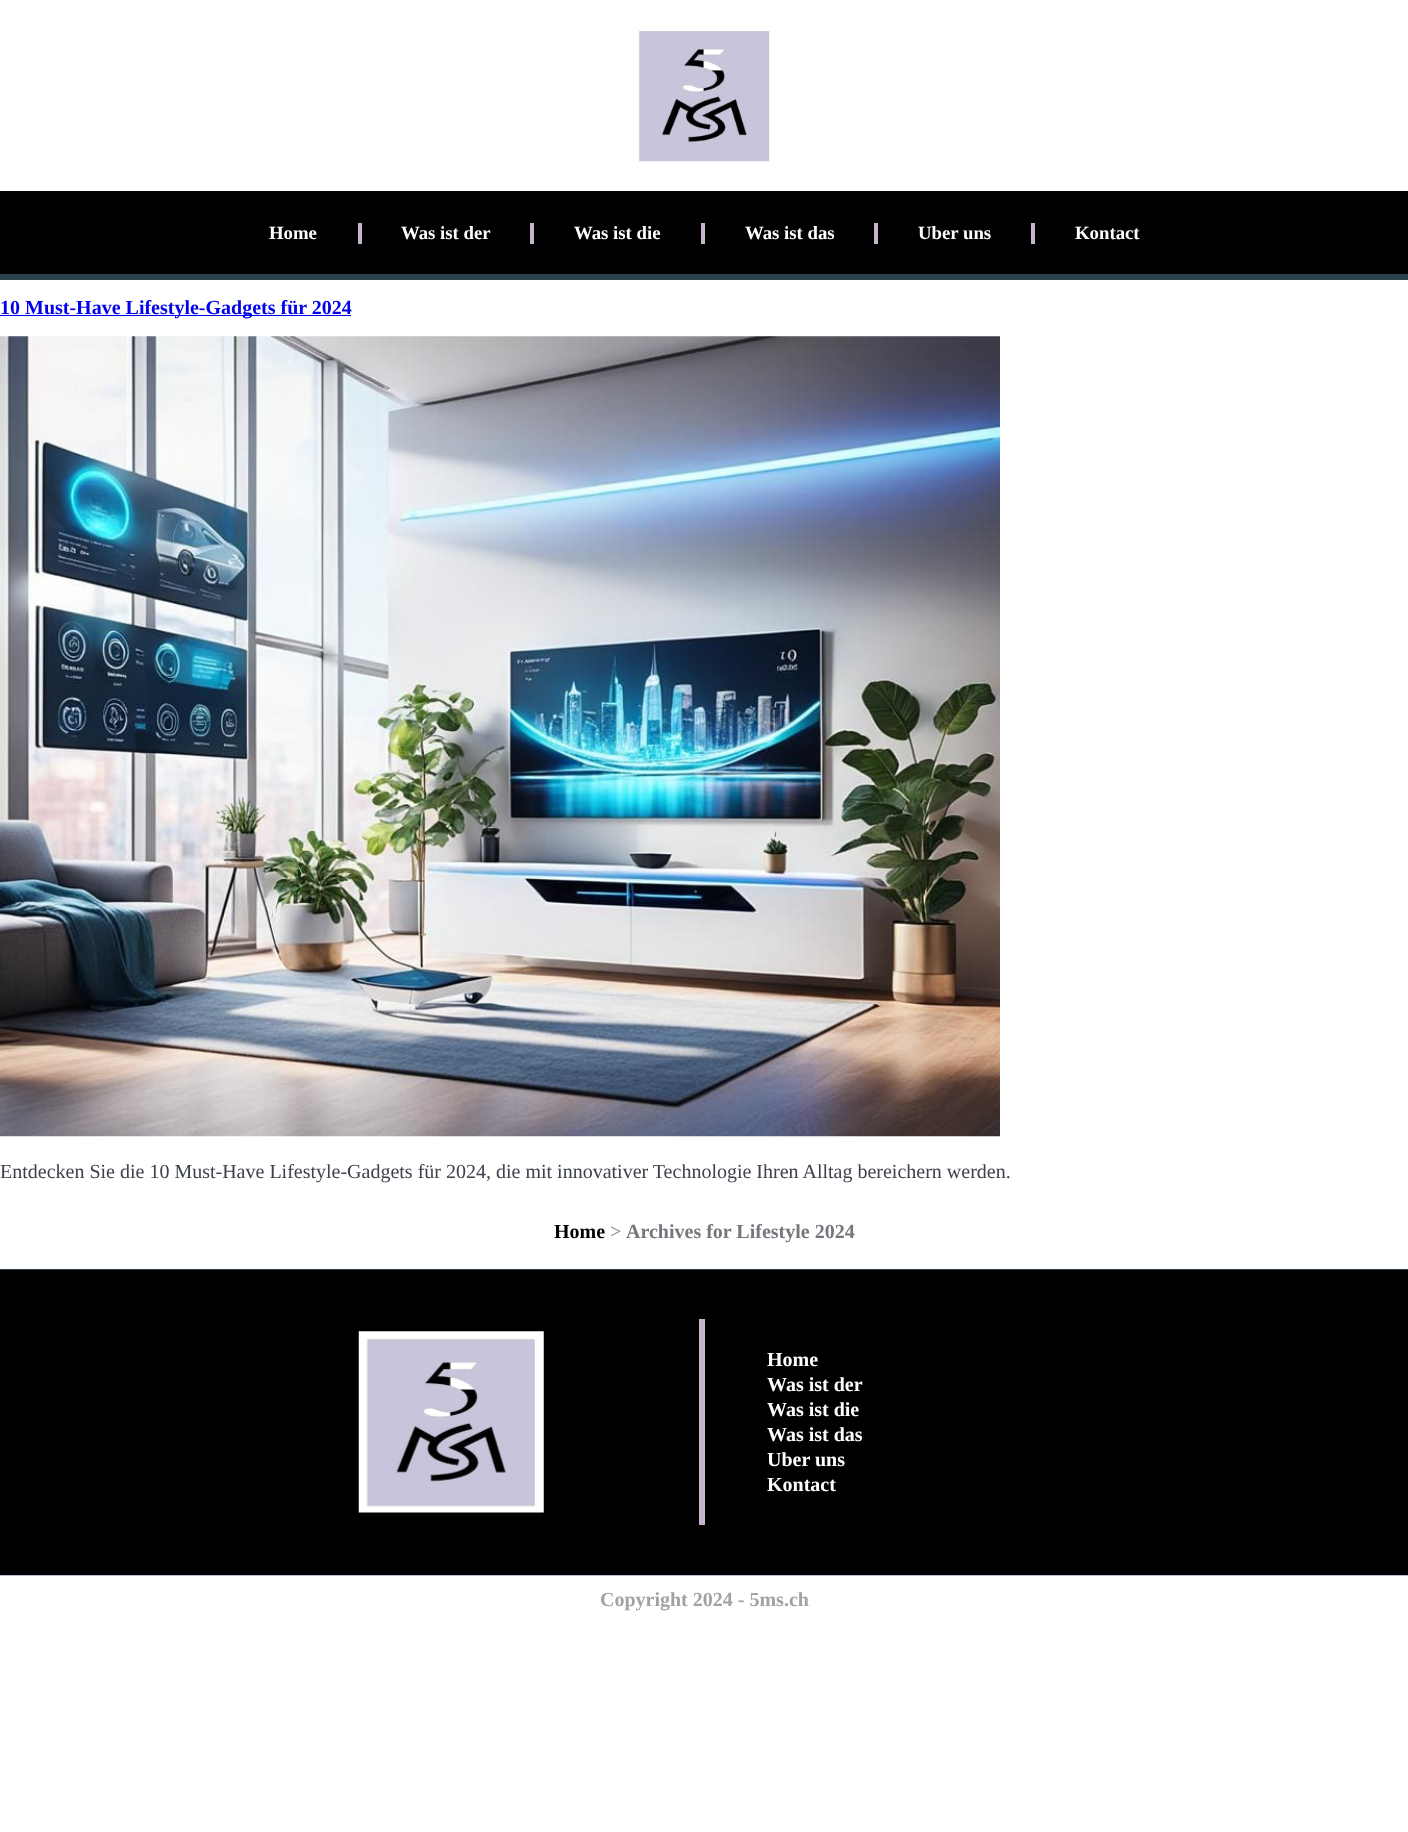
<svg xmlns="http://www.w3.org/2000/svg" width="1408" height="1832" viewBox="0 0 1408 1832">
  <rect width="100%" height="100%" fill="#ffffff"/>
  <image x="638" y="31" width="132" height="131" href="img1.png"/>
  <rect x="0" y="191" width="1408" height="83" fill="#000000"/>
  <rect x="0" y="274" width="1408" height="6" fill="#2a414d"/>
  <text x="269" y="239" font-family="Liberation Serif" font-size="18.75" font-weight="bold" fill="#ffffff">Home</text>
  <rect x="358" y="223" width="4" height="21" fill="#c4b4cc"/>
  <text x="401" y="239" font-family="Liberation Serif" font-size="18.75" font-weight="bold" fill="#ffffff">Was ist der</text>
  <rect x="530" y="223" width="4" height="21" fill="#c4b4cc"/>
  <text x="574" y="239" font-family="Liberation Serif" font-size="18.75" font-weight="bold" fill="#ffffff">Was ist die</text>
  <rect x="701" y="223" width="4" height="21" fill="#c4b4cc"/>
  <text x="745" y="239" font-family="Liberation Serif" font-size="18.75" font-weight="bold" fill="#ffffff">Was ist das</text>
  <rect x="874" y="223" width="4" height="21" fill="#c4b4cc"/>
  <text x="918" y="239" font-family="Liberation Serif" font-size="18.75" font-weight="bold" fill="#ffffff">Uber uns</text>
  <rect x="1031" y="223" width="4" height="21" fill="#c4b4cc"/>
  <text x="1075" y="239" font-family="Liberation Serif" font-size="18.75" font-weight="bold" fill="#ffffff">Kontact</text>
  <rect x="0" y="315" width="351" height="1" fill="#0000ee"/>
  <text x="0" y="314" font-family="Liberation Serif" font-size="20" font-weight="bold" fill="#0000ee">10 Must-Have Lifestyle-Gadgets für 2024</text>
  <image x="0" y="336" width="1000" height="801" href="img2.png"/>
  <text x="0" y="1178" font-family="Liberation Serif" font-size="20" fill="#3d414c">Entdecken Sie die 10 Must-Have Lifestyle-Gadgets für 2024, die mit innovativer Technologie Ihren Alltag bereichern werden.</text>
  <text x="554" y="1238" font-family="Liberation Serif" font-size="20" font-weight="bold" fill="#000000">Home</text>
  <text x="610" y="1238" font-family="Liberation Serif" font-size="20" fill="#79757d">&gt;</text>
  <text x="626" y="1238" font-family="Liberation Serif" font-size="20" font-weight="bold" fill="#79757d">Archives for Lifestyle 2024</text>
  <rect x="0" y="1270" width="1408" height="305" fill="#000000"/>
  <rect x="0" y="1269" width="1408" height="1" fill="#2a414d"/>
  <rect x="699" y="1319" width="6" height="206" fill="#c4b4cc"/>
  <image x="358" y="1331" width="186" height="182" href="img3.png"/>
  <text x="767" y="1366" font-family="Liberation Serif" font-size="20" font-weight="bold" fill="#ffffff">Home</text>
  <text x="767" y="1391" font-family="Liberation Serif" font-size="20" font-weight="bold" fill="#ffffff">Was ist der</text>
  <text x="767" y="1416" font-family="Liberation Serif" font-size="20" font-weight="bold" fill="#ffffff">Was ist die</text>
  <text x="767" y="1441" font-family="Liberation Serif" font-size="20" font-weight="bold" fill="#ffffff">Was ist das</text>
  <text x="767" y="1466" font-family="Liberation Serif" font-size="20" font-weight="bold" fill="#ffffff">Uber uns</text>
  <text x="767" y="1491" font-family="Liberation Serif" font-size="20" font-weight="bold" fill="#ffffff">Kontact</text>
  <rect x="0" y="1575" width="1408" height="1" fill="#c4b4cc"/>
  <text x="600" y="1606" font-family="Liberation Serif" font-size="20" font-weight="bold" fill="#a2a2a2">Copyright 2024 - 5ms.ch</text>
</svg>
